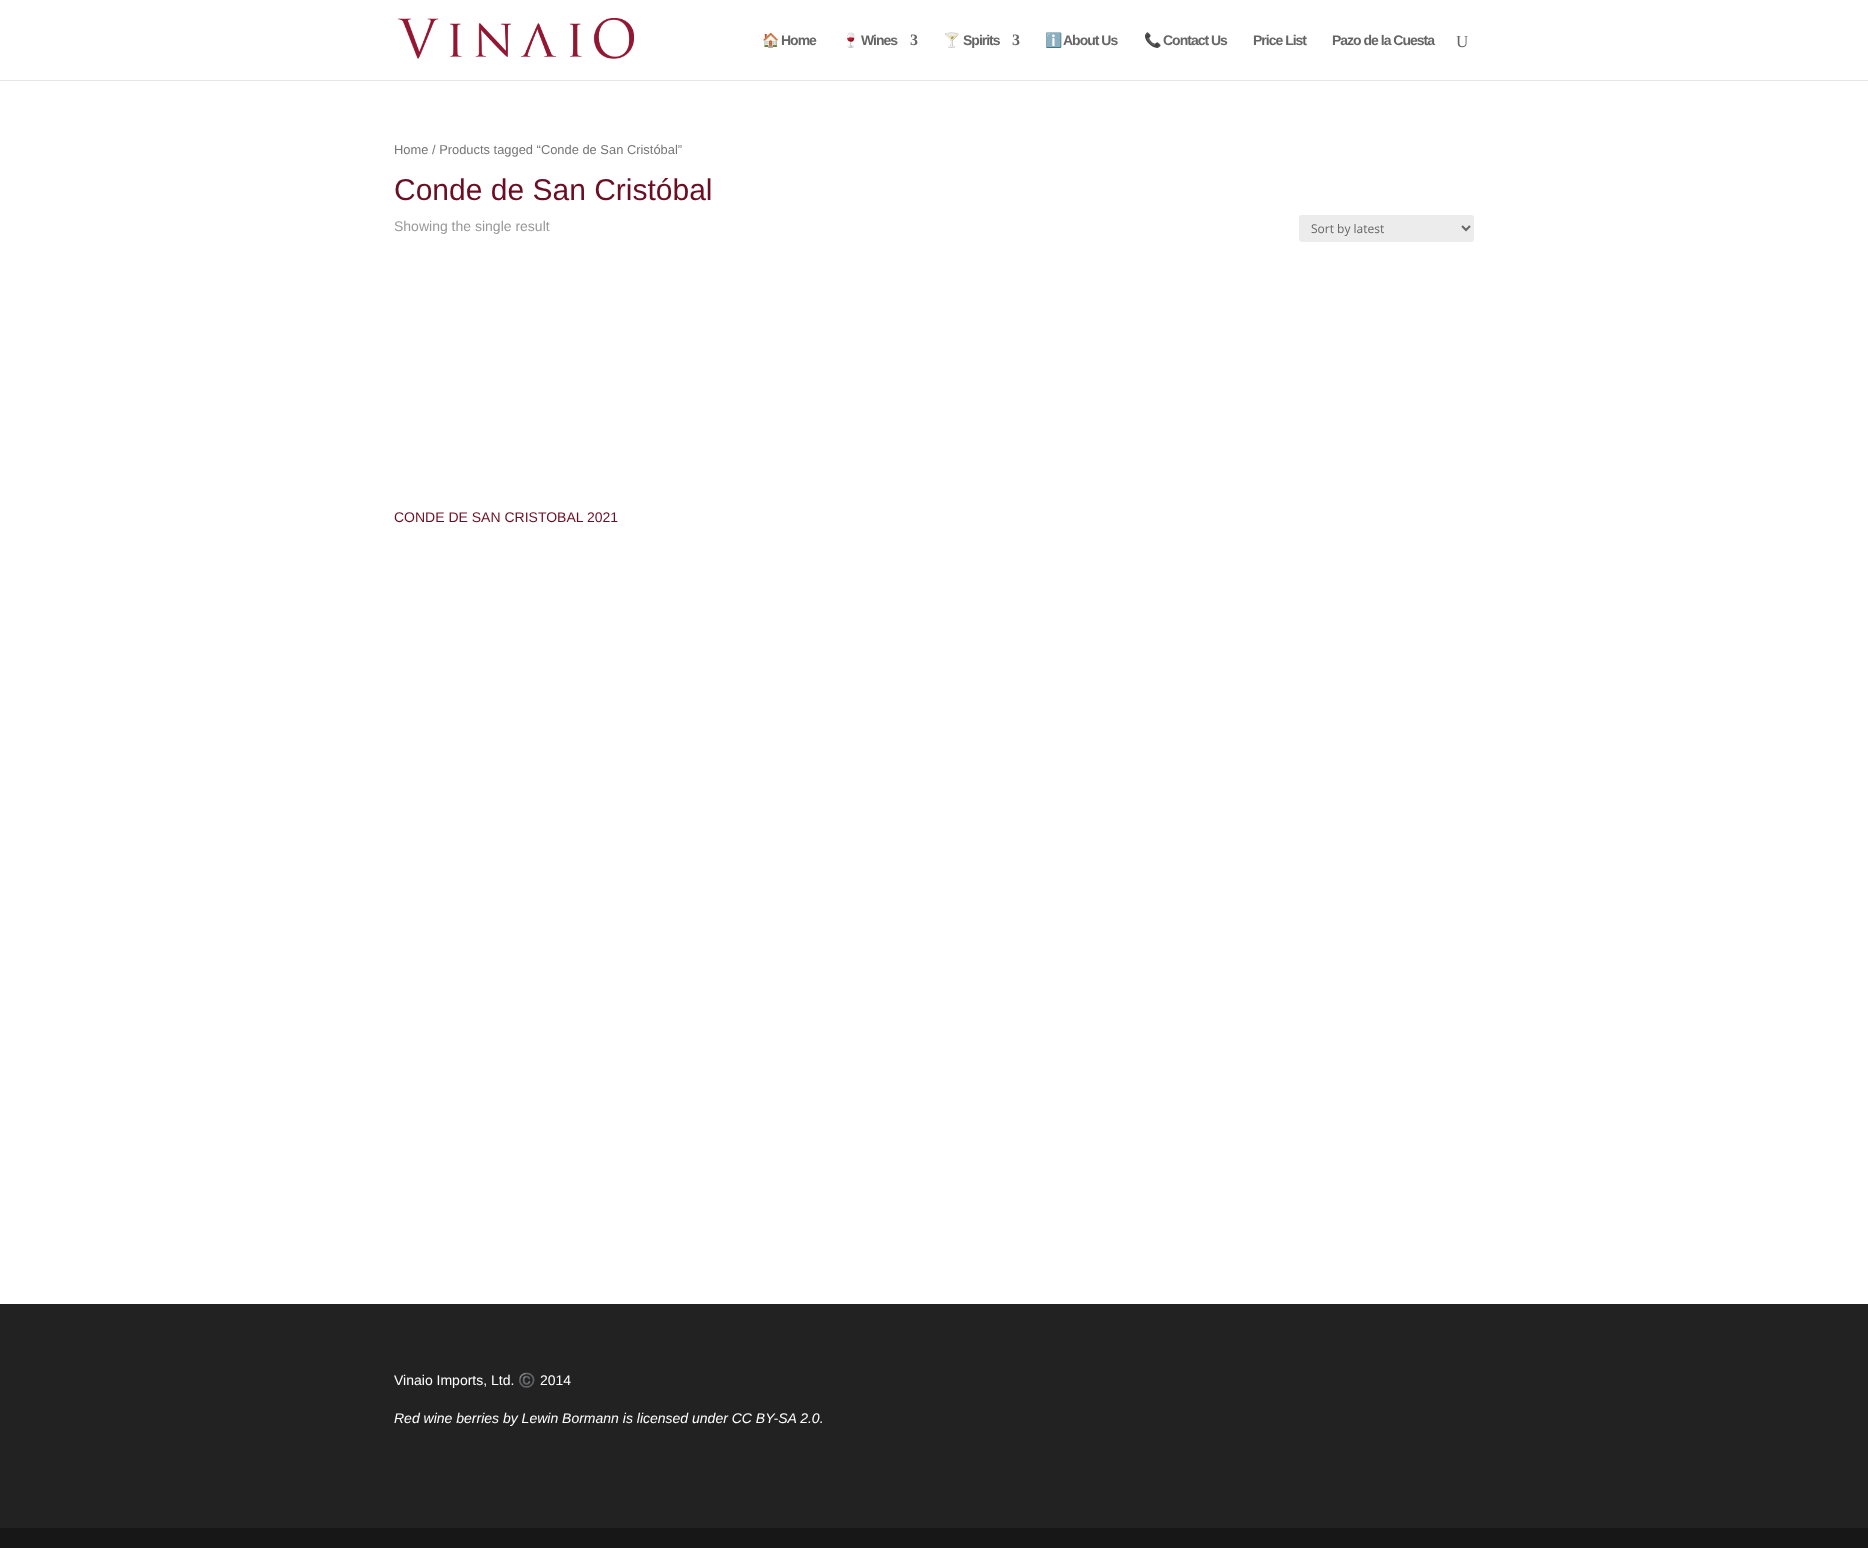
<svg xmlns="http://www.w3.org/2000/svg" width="1868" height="1548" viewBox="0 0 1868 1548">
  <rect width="100%" height="100%" fill="#ffffff"/>
  <rect x="0" y="80" width="1868" height="1" fill="#e6e6e6"/>
  <image x="398" y="18" width="236" height="41" href="img1.png"/>
  <text x="762" y="45" font-family="Noto Color Emoji" font-size="14" font-weight="bold" letter-spacing="-1" fill="#666666">🏠</text>
  <text x="781" y="45" font-family="Liberation Sans" font-size="14" font-weight="bold" letter-spacing="-1" fill="#666666">Home</text>
  <text x="842" y="45" font-family="Noto Color Emoji" font-size="14" font-weight="bold" letter-spacing="-1" fill="#666666">🍷</text>
  <text x="861" y="45" font-family="Liberation Sans" font-size="14" font-weight="bold" letter-spacing="-1" fill="#666666">Wines</text>
  <text x="910" y="45" font-family="Liberation Serif" font-size="16" font-weight="bold" letter-spacing="-1" fill="#666666">3</text>
  <text x="943" y="45" font-family="Noto Color Emoji" font-size="14" font-weight="bold" letter-spacing="-1" fill="#666666">🍸</text>
  <text x="963" y="45" font-family="Liberation Sans" font-size="14" font-weight="bold" letter-spacing="-1" fill="#666666">Spirits</text>
  <text x="1012" y="45" font-family="Liberation Serif" font-size="16" font-weight="bold" letter-spacing="-1" fill="#666666">3</text>
  <text x="1045" y="45" font-family="Noto Color Emoji" font-size="14" font-weight="bold" letter-spacing="-1" fill="#666666">ℹ️</text>
  <text x="1063" y="45" font-family="Liberation Sans" font-size="14" font-weight="bold" letter-spacing="-1" fill="#666666">About Us</text>
  <text x="1144" y="45" font-family="Noto Color Emoji" font-size="14" font-weight="bold" letter-spacing="-1" fill="#666666">📞</text>
  <text x="1163" y="45" font-family="Liberation Sans" font-size="14" font-weight="bold" letter-spacing="-1" fill="#666666">Contact Us</text>
  <text x="1253" y="45" font-family="Liberation Sans" font-size="14" font-weight="bold" letter-spacing="-1" fill="#666666">Price List</text>
  <text x="1332" y="45" font-family="Liberation Sans" font-size="14" font-weight="bold" letter-spacing="-1" fill="#666666">Pazo de la Cuesta</text>
  <text x="1456" y="47" font-family="Liberation Serif" font-size="17" fill="#666666">U</text>
  <text x="394" y="154" font-family="Liberation Sans" font-size="12.9" fill="#767676">Home / Products tagged “Conde de San Cristóbal”</text>
  <text x="394" y="200" font-family="Liberation Sans" font-size="30" fill="#6c0e23">Conde de San Cristóbal</text>
  <text x="394" y="231" font-family="Liberation Sans" font-size="14" fill="#999999">Showing the single result</text>
  <rect x="1299" y="215" width="175" height="27" rx="3" fill="#ececec"/>
  <path d="M1462 226L1466 230L1470 226" fill="none" stroke="#666666" stroke-width="2"/>
  <text x="1311" y="233" font-family="Open Sans" font-size="12" fill="#666666">Sort by latest</text>
  <text x="394" y="522" font-family="Liberation Sans" font-size="14" fill="#6c0e23">CONDE DE SAN CRISTOBAL 2021</text>
  <rect x="0" y="1304" width="1868" height="224" fill="#222222"/>
  <text x="394" y="1385" font-family="Liberation Sans" font-size="14" fill="#ffffff">Vinaio Imports, Ltd.</text>
  <text x="518" y="1385" font-family="Noto Color Emoji" font-size="14" fill="#ffffff">©️</text>
  <text x="540" y="1385" font-family="Liberation Sans" font-size="14" fill="#ffffff">2014</text>
  <text x="394" y="1423" font-family="Liberation Sans" font-size="14" font-style="italic" fill="#ffffff">Red wine berries by Lewin Bormann is licensed under CC BY-SA 2.0.</text>
  <rect x="0" y="1528" width="1868" height="20" fill="#171717"/>
</svg>
